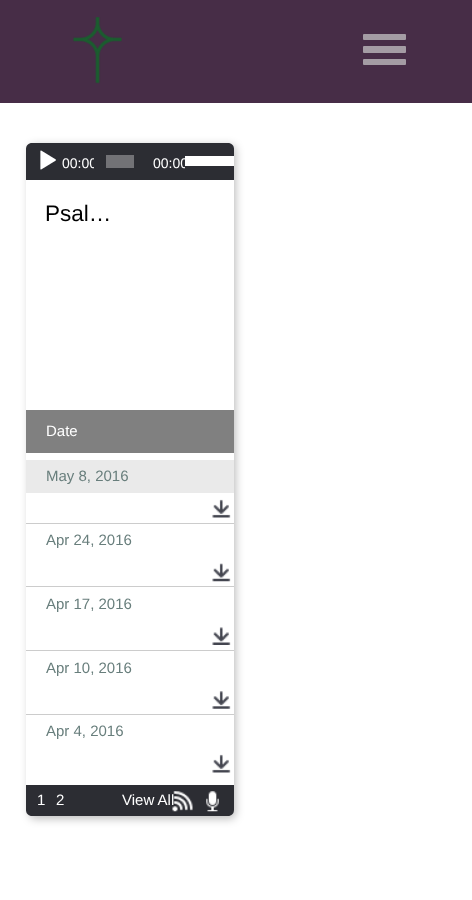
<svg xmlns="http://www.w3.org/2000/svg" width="472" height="900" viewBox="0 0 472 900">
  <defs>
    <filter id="blur1" x="-50%" y="-200%" width="200%" height="500%"><feGaussianBlur stdDeviation="4.5"/></filter>
    <clipPath id="clip1"><rect x="55" y="136" width="39" height="50"/></clipPath>
    <clipPath id="clip2"><rect x="146" y="136" width="39" height="50"/></clipPath>
  </defs>
  <rect width="100%" height="100%" fill="#ffffff"/>
  <rect x="0" y="0" width="472" height="103" fill="#472d47"/>
  <image x="73" y="17" width="49" height="67" href="img1.png"/>
  <rect x="363" y="46" width="43" height="7" rx="1" fill="#a49ca4"/>
  <rect x="363" y="34" width="43" height="6" rx="1" fill="#a49ca4"/>
  <rect x="363" y="59" width="43" height="6" rx="1" fill="#a49ca4"/>
  <rect x="29" y="145" width="207" height="674" rx="6" fill="#000000" fill-opacity="0.25" filter="url(#blur1)"/>
  <rect x="26" y="143" width="208" height="673" rx="6" fill="#ffffff"/>
  <path d="M32 143H228C231.5 143 234 145.5 234 149V180H26V149C26 145.5 28.5 143 32 143Z" fill="#2c2d33"/>
  <image x="40" y="150" width="16" height="20" href="img2.png"/>
  <g clip-path="url(#clip1)">
    <text x="62" y="168" font-family="Liberation Sans" font-size="14" fill="#ffffff">00:00</text>
  </g>
  <rect x="106" y="155" width="28" height="13" fill="#727276"/>
  <g clip-path="url(#clip2)">
    <text x="153" y="168" font-family="Liberation Sans" font-size="14" fill="#ffffff">00:00</text>
  </g>
  <rect x="185" y="156" width="49" height="10" fill="#ffffff"/>
  <text x="45" y="221" font-family="Liberation Sans" font-size="22.5" fill="#000000">Psal…</text>
  <rect x="26" y="410" width="208" height="43" fill="#808080"/>
  <text x="46" y="436" font-family="Liberation Sans" font-size="15" fill="#ffffff">Date</text>
  <rect x="26" y="460" width="208" height="33" fill="#eaeaea"/>
  <text x="46" y="481" font-family="Liberation Sans" font-size="15" fill="#687e7c">May 8, 2016</text>
  <image x="212" y="499" width="19" height="19" href="img3.png"/>
  <rect x="26" y="523" width="208" height="1" fill="#cccccc"/>
  <text x="46" y="545" font-family="Liberation Sans" font-size="15" fill="#687e7c">Apr 24, 2016</text>
  <image x="212" y="563" width="19" height="19" href="img4.png"/>
  <rect x="26" y="586" width="208" height="1" fill="#cccccc"/>
  <text x="46" y="609" font-family="Liberation Sans" font-size="15" fill="#687e7c">Apr 17, 2016</text>
  <image x="212" y="627" width="19" height="18" href="img5.png"/>
  <rect x="26" y="650" width="208" height="1" fill="#cccccc"/>
  <text x="46" y="673" font-family="Liberation Sans" font-size="15" fill="#687e7c">Apr 10, 2016</text>
  <image x="212" y="691" width="19" height="18" href="img6.png"/>
  <rect x="26" y="714" width="208" height="1" fill="#cccccc"/>
  <text x="46" y="736" font-family="Liberation Sans" font-size="15" fill="#687e7c">Apr 4, 2016</text>
  <image x="212" y="754" width="19" height="19" href="img3.png"/>
  <path d="M26 785H234V810C234 813.5 231.5 816 228 816H32C28.5 816 26 813.5 26 810Z" fill="#2c2d33"/>
  <text x="37" y="805" font-family="Liberation Sans" font-size="15" fill="#ffffff">1</text>
  <text x="56" y="805" font-family="Liberation Sans" font-size="15" fill="#ffffff">2</text>
  <text x="122" y="805" font-family="Liberation Sans" font-size="15" fill="#ffffff">View All</text>
  <image x="172" y="791" width="21" height="21" href="img7.png"/>
  <image x="206" y="791" width="13" height="21" href="img8.png"/>
</svg>
